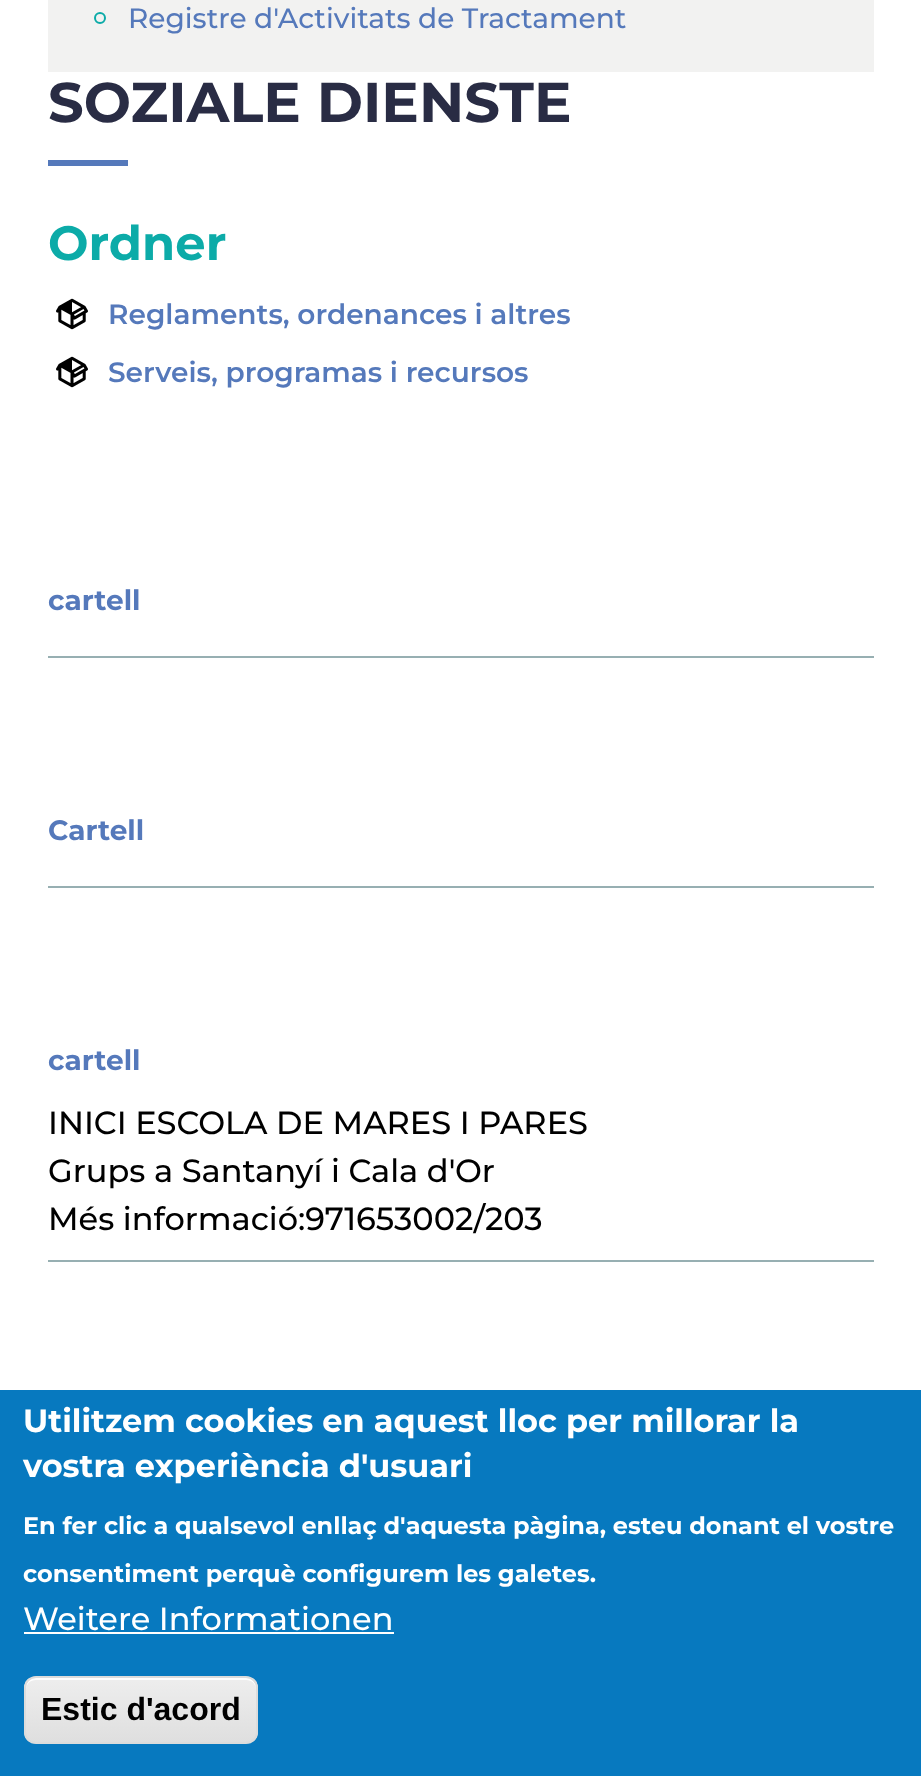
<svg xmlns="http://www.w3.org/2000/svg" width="921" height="1776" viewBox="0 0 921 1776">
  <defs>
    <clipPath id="clip1"><rect x="24" y="1676" width="234" height="68" rx="12"/></clipPath>
    <linearGradient id="g1" gradientUnits="userSpaceOnUse" x1="141" y1="1678" x2="141" y2="1742"><stop offset="0.05" stop-color="#ededed"/><stop offset="1" stop-color="#dfdfdf"/></linearGradient>
  </defs>
  <rect width="100%" height="100%" fill="#ffffff"/>
  <rect x="48" y="0" width="826" height="72" fill="#f2f2f1"/>
  <circle cx="100" cy="18" r="5" fill="none" stroke="#0caba8" stroke-width="2"/>
  <text x="128" y="28" font-family="Montserrat" font-size="28" font-weight="500" fill="#5579bb">Registre d'Activitats de Tractament</text>
  <text x="48" y="122" font-family="Montserrat" font-size="56" font-weight="bold" fill="#292c44">SOZIALE DIENSTE</text>
  <rect x="48" y="160" width="80" height="6" fill="#5579bb"/>
  <text x="48" y="260" font-family="Montserrat" font-size="48" font-weight="bold" fill="#0caba8">Ordner</text>
  <image x="56" y="298" width="32" height="32" href="img1.png"/>
  <text x="108" y="324" font-family="Montserrat" font-size="28" font-weight="600" fill="#5579bb">Reglaments, ordenances i altres</text>
  <image x="56" y="356" width="32" height="32" href="img1.png"/>
  <text x="108" y="382" font-family="Montserrat" font-size="28" font-weight="600" fill="#5579bb">Serveis, programas i recursos</text>
  <rect x="48" y="656" width="826" height="2" fill="#97afb2"/>
  <text x="48" y="610" font-family="Montserrat" font-size="28" font-weight="bold" fill="#5579bb">cartell</text>
  <rect x="48" y="886" width="826" height="2" fill="#97afb2"/>
  <text x="48" y="840" font-family="Montserrat" font-size="28" font-weight="bold" fill="#5579bb">Cartell</text>
  <rect x="48" y="1260" width="826" height="2" fill="#97afb2"/>
  <text x="48" y="1070" font-family="Montserrat" font-size="28" font-weight="bold" fill="#5579bb">cartell</text>
  <text x="48" y="1134" font-family="Montserrat" font-size="32" font-weight="500" fill="#000000">INICI ESCOLA DE MARES I PARES</text>
  <text x="48" y="1182" font-family="Montserrat" font-size="32" font-weight="500" fill="#000000">Grups a Santanyí i Cala d'Or</text>
  <text x="48" y="1230" font-family="Montserrat" font-size="32" font-weight="500" fill="#000000">Més informació:971653002/203</text>
  <rect x="0" y="1390" width="921" height="386" fill="#0779bf"/>
  <text x="23" y="1432" font-family="Montserrat" font-size="32" font-weight="bold" fill="#ffffff">Utilitzem cookies en aquest lloc per millorar la</text>
  <text x="23" y="1477" font-family="Montserrat" font-size="32" font-weight="bold" fill="#ffffff">vostra experiència d'usuari</text>
  <text x="23" y="1534" font-family="Montserrat" font-size="24" font-weight="bold" fill="#ffffff">En fer clic a qualsevol enllaç d'aquesta pàgina, esteu donant el vostre</text>
  <text x="23" y="1582" font-family="Montserrat" font-size="24" font-weight="bold" fill="#ffffff">consentiment perquè configurem les galetes.</text>
  <text x="23" y="1630" font-family="Montserrat" font-size="32" font-weight="500" fill="#ffffff">Weitere Informationen</text>
  <rect x="24" y="1632" width="370" height="2" fill="#ffffff"/>
  <g clip-path="url(#clip1)">
    <rect x="24" y="1678" width="234" height="64" fill="url(#g1)"/>
  </g>
  <path d="M36 1680H246C252 1680 256 1684 256 1690V1688C256 1682 252 1678 246 1678H36C30 1678 26 1682 26 1688V1690C26 1684 30 1680 36 1680Z" fill="#ffffff"/>
  <rect x="25" y="1677" width="232" height="66" rx="11" fill="none" stroke="#dcdcdc" stroke-width="2"/>
  <text x="41" y="1720" font-family="Liberation Sans" font-size="32" font-weight="bold" fill="#000000">Estic d'acord</text>
</svg>
